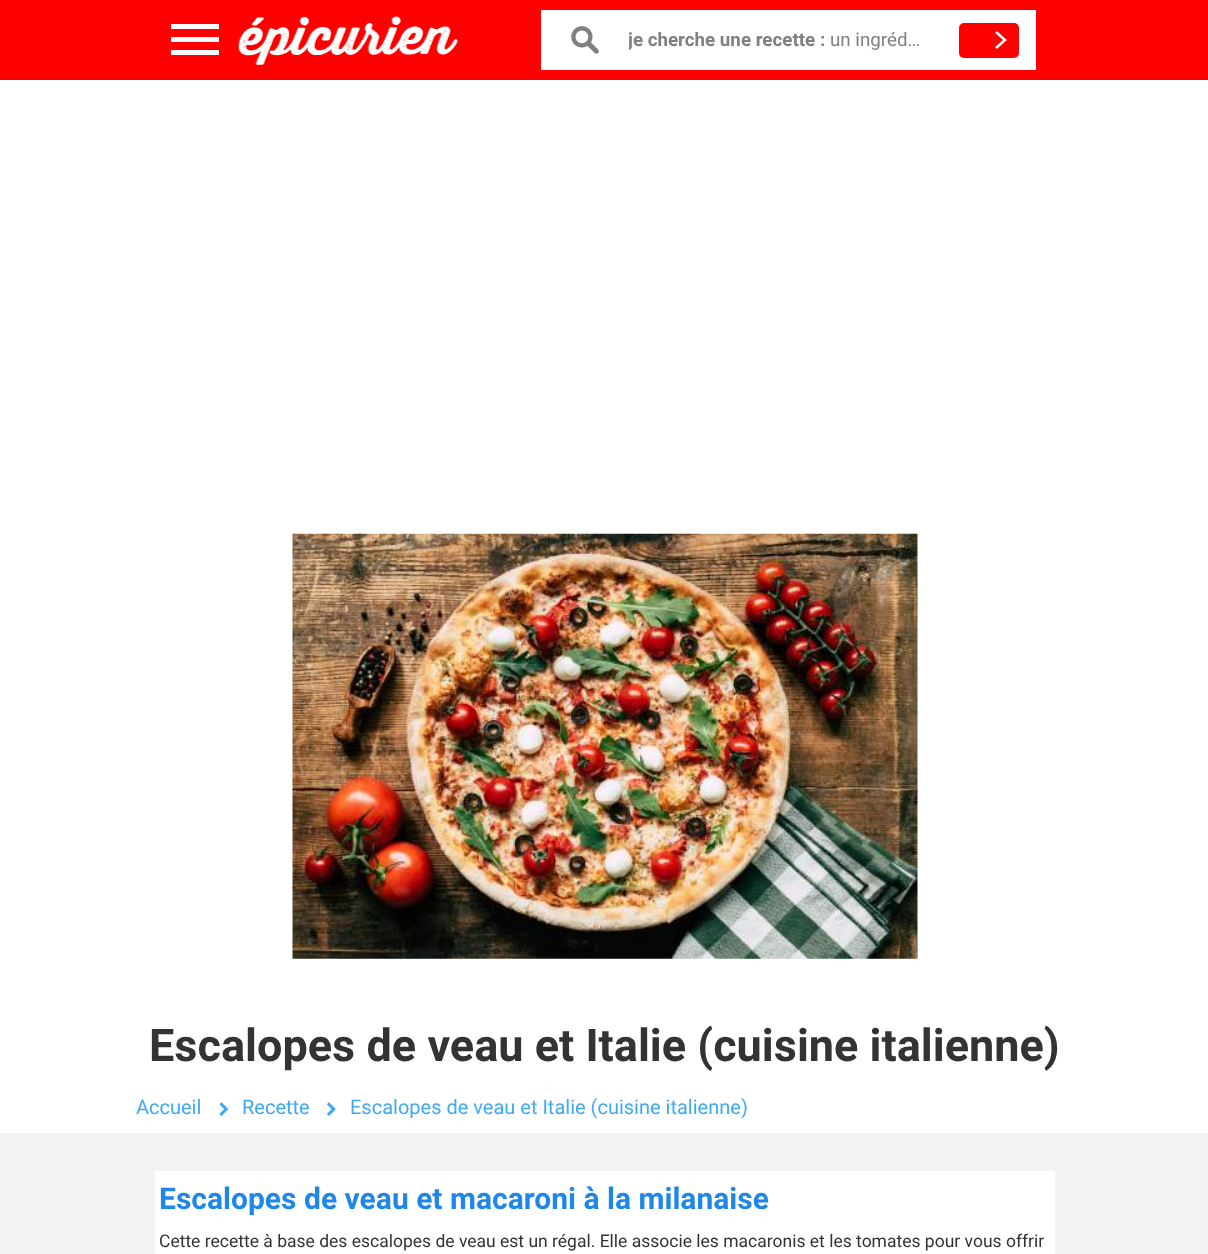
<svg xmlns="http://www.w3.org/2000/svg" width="1208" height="1254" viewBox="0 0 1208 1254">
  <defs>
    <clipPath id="clip1"><rect x="629" y="10" width="295" height="60"/></clipPath>
  </defs>
  <rect width="100%" height="100%" fill="#ffffff"/>
  <rect x="0" y="0" width="1208" height="80" fill="#ff0000"/>
  <path d="M171 24H219V29H171ZM171 37H219V42H171ZM171 50H219V55H171Z" fill="#ffffff"/>
  <image x="238" y="16" width="220" height="49" href="img1.png"/>
  <rect x="541" y="10" width="495" height="60" fill="#ffffff"/>
  <image x="571" y="26" width="28" height="28" href="img2.png"/>
  <g clip-path="url(#clip1)">
    <text x="628" y="46" font-family="Roboto" font-size="18.75" font-weight="bold" fill="#808080">je cherche une recette :</text>
  </g>
  <text x="830" y="46" font-family="Roboto" font-size="18.75" fill="#808080">un ingréd…</text>
  <rect x="959" y="23" width="60" height="35" rx="5" fill="#ff0000"/>
  <path d="M996 32L1005 40L996 48" fill="none" stroke="#ffffff" stroke-width="2.5"/>
  <image x="292" y="533" width="626" height="426" href="img3.png"/>
  <text x="149" y="1061" font-family="Roboto" font-size="45" font-weight="bold" fill="#333333">Escalopes de veau et Italie (cuisine italienne)</text>
  <text x="136" y="1114" font-family="Roboto" font-size="20" fill="#3fa9f5">Accueil</text>
  <image x="219" y="1102" width="10" height="14" href="img4.png"/>
  <text x="242" y="1114" font-family="Roboto" font-size="20" fill="#3fa9f5">Recette</text>
  <image x="327" y="1102" width="9" height="14" href="img5.png"/>
  <text x="350" y="1114" font-family="Roboto" font-size="20" fill="#3fa9f5">Escalopes de veau et Italie (cuisine italienne)</text>
  <rect x="0" y="1133" width="1208" height="121" fill="#f3f3f3"/>
  <rect x="155" y="1171" width="900" height="83" fill="#ffffff"/>
  <text x="159" y="1209" font-family="Roboto" font-size="30" font-weight="bold" fill="#1e87e8">Escalopes de veau et macaroni à la milanaise</text>
  <text x="159" y="1247" font-family="Roboto" font-size="17.5" fill="#333333">Cette recette à base des escalopes de veau est un régal. Elle associe les macaronis et les tomates pour vous offrir</text>
</svg>
